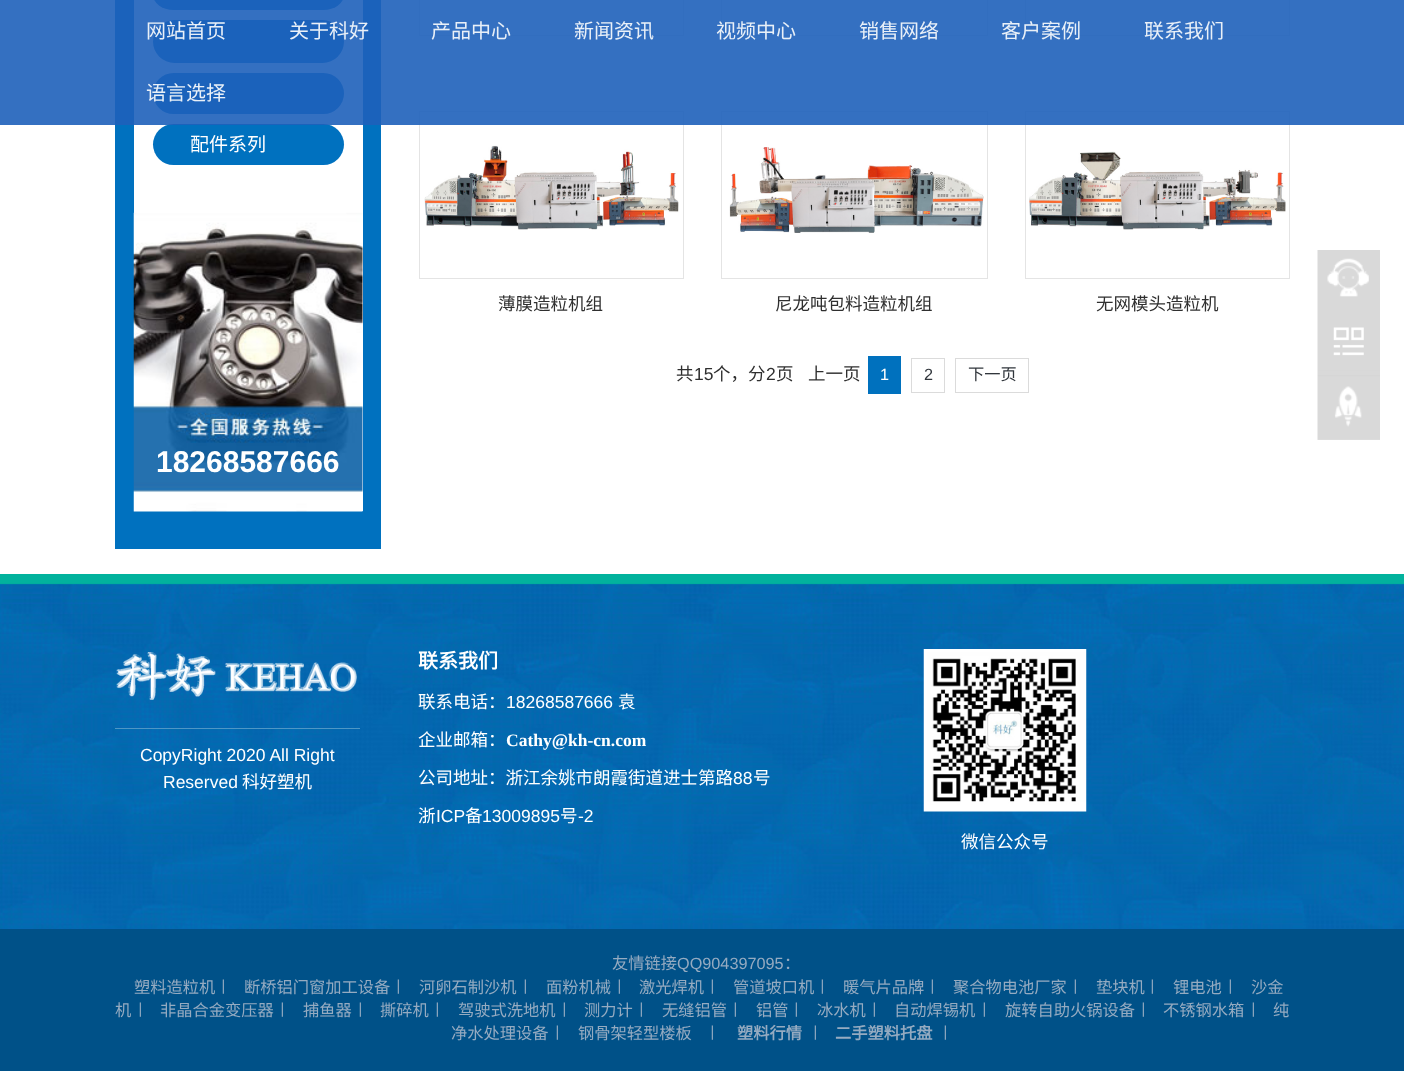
<svg xmlns="http://www.w3.org/2000/svg" width="1404" height="1071" viewBox="0 0 1404 1071">
  <rect width="100%" height="100%" fill="#ffffff"/>
  <rect x="115" y="0" width="266" height="549" fill="#0071bf"/>
  <rect x="134" y="0" width="229" height="511" fill="#ffffff"/>
  <rect x="153" y="-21" width="191" height="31" rx="20.5" fill="#0071bf"/>
  <rect x="153" y="20" width="191" height="43" rx="21.5" fill="#0071bf"/>
  <rect x="153" y="73" width="191" height="41" rx="20.5" fill="#0071bf"/>
  <rect x="153" y="124" width="191" height="41" rx="20.5" fill="#0071bf"/>
  <rect x="419.5" y="-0.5" width="264" height="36" fill="none" stroke="#e4e4e4"/>
  <rect x="420" y="35" width="262" height="1" fill="#ebebeb"/>
  <rect x="721.5" y="-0.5" width="266" height="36" fill="none" stroke="#e4e4e4"/>
  <rect x="723" y="35" width="263" height="1" fill="#ebebeb"/>
  <rect x="1025.5" y="-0.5" width="264" height="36" fill="none" stroke="#e4e4e4"/>
  <image x="1026" y="35" width="263" height="1" href="img2.png"/>
  <rect x="419.5" y="111.5" width="264" height="167" fill="none" stroke="#e4e4e4"/>
  <rect x="721.5" y="111.5" width="266" height="167" fill="none" stroke="#e4e4e4"/>
  <rect x="1025.5" y="111.5" width="264" height="167" fill="none" stroke="#e4e4e4"/>
  <rect x="0" y="0" width="1404" height="125" fill="#1e61ba" fill-opacity="0.9"/>
  <text x="146" y="38" font-family="Noto Sans CJK SC" font-size="20" fill="#e9f0f8">网站首页</text>
  <text x="289" y="38" font-family="Noto Sans CJK SC" font-size="20" fill="#e9f0f8">关于科好</text>
  <text x="431" y="38" font-family="Noto Sans CJK SC" font-size="20" fill="#e9f0f8">产品中心</text>
  <text x="574" y="38" font-family="Noto Sans CJK SC" font-size="20" fill="#e9f0f8">新闻资讯</text>
  <text x="716" y="38" font-family="Noto Sans CJK SC" font-size="20" fill="#e9f0f8">视频中心</text>
  <text x="859" y="38" font-family="Noto Sans CJK SC" font-size="20" fill="#e9f0f8">销售网络</text>
  <text x="1001" y="38" font-family="Noto Sans CJK SC" font-size="20" fill="#e9f0f8">客户案例</text>
  <text x="1144" y="38" font-family="Noto Sans CJK SC" font-size="20" fill="#e9f0f8">联系我们</text>
  <text x="146" y="100" font-family="Noto Sans CJK SC" font-size="20" fill="#e9f0f8">语言选择</text>
  <image x="133" y="212" width="230" height="300" href="img1.png"/>
  <text x="190" y="151" font-family="Noto Sans CJK SC" font-size="19" fill="#ffffff">配件系列</text>
  <text x="156" y="472" font-family="Liberation Sans" font-size="30" font-weight="bold" fill="#ffffff">18268587666</text>
  <image x="424" y="145" width="255" height="85" href="img3.png"/>
  <text x="498" y="310" font-family="Noto Sans CJK SC" font-size="17.5" fill="#2f2f2f">薄膜造粒机组</text>
  <image x="729" y="147" width="255" height="86" href="img4.png"/>
  <text x="775" y="310" font-family="Noto Sans CJK SC" font-size="17.5" fill="#2f2f2f">尼龙吨包料造粒机组</text>
  <image x="1029" y="151" width="257" height="79" href="img5.png"/>
  <text x="1096" y="310" font-family="Noto Sans CJK SC" font-size="17.5" fill="#2f2f2f">无网模头造粒机</text>
  <text x="676" y="380" font-family="Noto Sans CJK SC" font-size="17.5" fill="#2f2f2f">共</text>
  <text x="694" y="380" font-family="Liberation Sans" font-size="17.5" fill="#2f2f2f">15</text>
  <text x="713" y="380" font-family="Noto Sans CJK SC" font-size="17.5" fill="#2f2f2f">个，分</text>
  <text x="766" y="380" font-family="Liberation Sans" font-size="17.5" fill="#2f2f2f">2</text>
  <text x="776" y="380" font-family="Noto Sans CJK SC" font-size="17.5" fill="#2f2f2f">页</text>
  <text x="808" y="380" font-family="Noto Sans CJK SC" font-size="17.5" fill="#2f2f2f">上一页</text>
  <rect x="868" y="356" width="33" height="38" fill="#0071be"/>
  <text x="880" y="380" font-family="Liberation Sans" font-size="16.25" fill="#ffffff">1</text>
  <rect x="911.5" y="358.5" width="33" height="34" fill="none" stroke="#dbdbdb"/>
  <text x="924" y="380" font-family="Liberation Sans" font-size="16.25" fill="#31363c">2</text>
  <rect x="955.5" y="358.5" width="73" height="34" fill="none" stroke="#dbdbdb"/>
  <text x="968" y="380" font-family="Noto Sans CJK SC" font-size="16.25" fill="#31363c">下一页</text>
  <image x="1317" y="250" width="63" height="190" href="img6.png"/>
  <image x="0" y="574" width="1404" height="355" href="img7.png"/>
  <image x="116" y="652" width="241" height="48" href="img8.png"/>
  <rect x="115" y="728" width="245" height="1" fill="#4e97c5"/>
  <text x="140" y="761" font-family="Liberation Sans" font-size="17.5" fill="#ffffff">CopyRight 2020 All Right</text>
  <text x="163" y="788" font-family="Liberation Sans" font-size="17.5" fill="#ffffff">Reserved</text>
  <text x="242" y="788" font-family="Noto Sans CJK SC" font-size="17.5" fill="#ffffff">科好塑机</text>
  <text x="418" y="668" font-family="Noto Sans CJK SC" font-size="20" font-weight="bold" fill="#ffffff">联系我们</text>
  <text x="418" y="708" font-family="Noto Sans CJK SC" font-size="17.5" fill="#ffffff">联系电话：</text>
  <text x="506" y="708" font-family="Liberation Sans" font-size="17.5" fill="#ffffff">18268587666</text>
  <text x="618" y="708" font-family="Noto Sans CJK SC" font-size="17.5" fill="#ffffff">袁</text>
  <text x="418" y="746" font-family="Noto Sans CJK SC" font-size="17.5" fill="#ffffff">企业邮箱：</text>
  <text x="506" y="746" font-family="Liberation Serif" font-size="17.5" font-weight="bold" fill="#ffffff">Cathy@kh-cn.com</text>
  <text x="418" y="784" font-family="Noto Sans CJK SC" font-size="17.5" fill="#ffffff">公司地址：浙江余姚市朗霞街道进士第路</text>
  <text x="733" y="784" font-family="Liberation Sans" font-size="17.5" fill="#ffffff">88</text>
  <text x="753" y="784" font-family="Noto Sans CJK SC" font-size="17.5" fill="#ffffff">号</text>
  <text x="418" y="822" font-family="Noto Sans CJK SC" font-size="17.5" fill="#ffffff">浙</text>
  <text x="436" y="822" font-family="Liberation Sans" font-size="17.5" fill="#ffffff">ICP</text>
  <text x="465" y="822" font-family="Noto Sans CJK SC" font-size="17.5" fill="#ffffff">备</text>
  <text x="482" y="822" font-family="Liberation Sans" font-size="17.5" fill="#ffffff">13009895</text>
  <text x="560" y="822" font-family="Noto Sans CJK SC" font-size="17.5" fill="#ffffff">号</text>
  <text x="578" y="822" font-family="Liberation Sans" font-size="17.5" fill="#ffffff">-2</text>
  <image x="923" y="649" width="164" height="163" href="img9.png"/>
  <text x="961" y="848" font-family="Noto Sans CJK SC" font-size="17.5" fill="#ffffff">微信公众号</text>
  <rect x="0" y="929" width="1404" height="142" fill="#005188"/>
  <text x="612" y="969" font-family="Noto Sans CJK SC" font-size="16.25" fill="#95abc1">友情链接</text>
  <text x="677" y="969" font-family="Liberation Sans" font-size="16.25" fill="#95abc1">QQ904397095</text>
  <text x="784" y="969" font-family="Noto Sans CJK SC" font-size="16.25" fill="#95abc1">：</text>
  <text x="134" y="993" font-family="Noto Sans CJK SC" font-size="16.25" fill="#95abc1">塑料造粒机</text>
  <text x="215" y="993" font-family="Noto Sans CJK SC" font-size="16.25" font-weight="bold" fill="#95abc1">︱</text>
  <text x="244" y="993" font-family="Noto Sans CJK SC" font-size="16.25" fill="#95abc1">断桥铝门窗加工设备</text>
  <text x="390" y="993" font-family="Noto Sans CJK SC" font-size="16.25" font-weight="bold" fill="#95abc1">︱</text>
  <text x="419" y="993" font-family="Noto Sans CJK SC" font-size="16.25" fill="#95abc1">河卵石制沙机</text>
  <text x="517" y="993" font-family="Noto Sans CJK SC" font-size="16.25" font-weight="bold" fill="#95abc1">︱</text>
  <text x="546" y="993" font-family="Noto Sans CJK SC" font-size="16.25" fill="#95abc1">面粉机械</text>
  <text x="611" y="993" font-family="Noto Sans CJK SC" font-size="16.25" font-weight="bold" fill="#95abc1">︱</text>
  <text x="639" y="993" font-family="Noto Sans CJK SC" font-size="16.25" fill="#95abc1">激光焊机</text>
  <text x="704" y="993" font-family="Noto Sans CJK SC" font-size="16.25" font-weight="bold" fill="#95abc1">︱</text>
  <text x="733" y="993" font-family="Noto Sans CJK SC" font-size="16.25" fill="#95abc1">管道坡口机</text>
  <text x="814" y="993" font-family="Noto Sans CJK SC" font-size="16.25" font-weight="bold" fill="#95abc1">︱</text>
  <text x="843" y="993" font-family="Noto Sans CJK SC" font-size="16.25" fill="#95abc1">暖气片品牌</text>
  <text x="924" y="993" font-family="Noto Sans CJK SC" font-size="16.25" font-weight="bold" fill="#95abc1">︱</text>
  <text x="953" y="993" font-family="Noto Sans CJK SC" font-size="16.25" fill="#95abc1">聚合物电池厂家</text>
  <text x="1067" y="993" font-family="Noto Sans CJK SC" font-size="16.25" font-weight="bold" fill="#95abc1">︱</text>
  <text x="1096" y="993" font-family="Noto Sans CJK SC" font-size="16.25" fill="#95abc1">垫块机</text>
  <text x="1144" y="993" font-family="Noto Sans CJK SC" font-size="16.25" font-weight="bold" fill="#95abc1">︱</text>
  <text x="1173" y="993" font-family="Noto Sans CJK SC" font-size="16.25" fill="#95abc1">锂电池</text>
  <text x="1222" y="993" font-family="Noto Sans CJK SC" font-size="16.25" font-weight="bold" fill="#95abc1">︱</text>
  <text x="1251" y="993" font-family="Noto Sans CJK SC" font-size="16.25" fill="#95abc1">沙金</text>
  <text x="115" y="1016" font-family="Noto Sans CJK SC" font-size="16.25" fill="#95abc1">机</text>
  <text x="132" y="1016" font-family="Noto Sans CJK SC" font-size="16.25" font-weight="bold" fill="#95abc1">︱</text>
  <text x="160" y="1016" font-family="Noto Sans CJK SC" font-size="16.25" fill="#95abc1">非晶合金变压器</text>
  <text x="274" y="1016" font-family="Noto Sans CJK SC" font-size="16.25" font-weight="bold" fill="#95abc1">︱</text>
  <text x="303" y="1016" font-family="Noto Sans CJK SC" font-size="16.25" fill="#95abc1">捕鱼器</text>
  <text x="352" y="1016" font-family="Noto Sans CJK SC" font-size="16.25" font-weight="bold" fill="#95abc1">︱</text>
  <text x="380" y="1016" font-family="Noto Sans CJK SC" font-size="16.25" fill="#95abc1">撕碎机</text>
  <text x="429" y="1016" font-family="Noto Sans CJK SC" font-size="16.25" font-weight="bold" fill="#95abc1">︱</text>
  <text x="458" y="1016" font-family="Noto Sans CJK SC" font-size="16.25" fill="#95abc1">驾驶式洗地机</text>
  <text x="556" y="1016" font-family="Noto Sans CJK SC" font-size="16.25" font-weight="bold" fill="#95abc1">︱</text>
  <text x="584" y="1016" font-family="Noto Sans CJK SC" font-size="16.25" fill="#95abc1">测力计</text>
  <text x="633" y="1016" font-family="Noto Sans CJK SC" font-size="16.25" font-weight="bold" fill="#95abc1">︱</text>
  <text x="662" y="1016" font-family="Noto Sans CJK SC" font-size="16.25" fill="#95abc1">无缝铝管</text>
  <text x="727" y="1016" font-family="Noto Sans CJK SC" font-size="16.25" font-weight="bold" fill="#95abc1">︱</text>
  <text x="756" y="1016" font-family="Noto Sans CJK SC" font-size="16.25" fill="#95abc1">铝管</text>
  <text x="788" y="1016" font-family="Noto Sans CJK SC" font-size="16.25" font-weight="bold" fill="#95abc1">︱</text>
  <text x="817" y="1016" font-family="Noto Sans CJK SC" font-size="16.25" fill="#95abc1">冰水机</text>
  <text x="866" y="1016" font-family="Noto Sans CJK SC" font-size="16.25" font-weight="bold" fill="#95abc1">︱</text>
  <text x="894" y="1016" font-family="Noto Sans CJK SC" font-size="16.25" fill="#95abc1">自动焊锡机</text>
  <text x="976" y="1016" font-family="Noto Sans CJK SC" font-size="16.25" font-weight="bold" fill="#95abc1">︱</text>
  <text x="1005" y="1016" font-family="Noto Sans CJK SC" font-size="16.25" fill="#95abc1">旋转自助火锅设备</text>
  <text x="1135" y="1016" font-family="Noto Sans CJK SC" font-size="16.25" font-weight="bold" fill="#95abc1">︱</text>
  <text x="1163" y="1016" font-family="Noto Sans CJK SC" font-size="16.25" fill="#95abc1">不锈钢水箱</text>
  <text x="1245" y="1016" font-family="Noto Sans CJK SC" font-size="16.25" font-weight="bold" fill="#95abc1">︱</text>
  <text x="1273" y="1016" font-family="Noto Sans CJK SC" font-size="16.25" fill="#95abc1">纯</text>
  <text x="451" y="1039" font-family="Noto Sans CJK SC" font-size="16.25" fill="#95abc1">净水处理设备</text>
  <text x="549" y="1039" font-family="Noto Sans CJK SC" font-size="16.25" font-weight="bold" fill="#95abc1">︱</text>
  <text x="578" y="1039" font-family="Noto Sans CJK SC" font-size="16.25" fill="#95abc1">钢骨架轻型楼板</text>
  <text x="704" y="1039" font-family="Noto Sans CJK SC" font-size="16.25" font-weight="bold" fill="#95abc1">︱</text>
  <text x="737" y="1039" font-family="Noto Sans CJK SC" font-size="16.25" font-weight="bold" fill="#95abc1">塑料行情</text>
  <text x="807" y="1039" font-family="Noto Sans CJK SC" font-size="16.25" font-weight="bold" fill="#95abc1">︱</text>
  <text x="835" y="1039" font-family="Noto Sans CJK SC" font-size="16.25" font-weight="bold" fill="#95abc1">二手塑料托盘</text>
  <text x="937" y="1039" font-family="Noto Sans CJK SC" font-size="16.25" font-weight="bold" fill="#95abc1">︱</text>
</svg>
